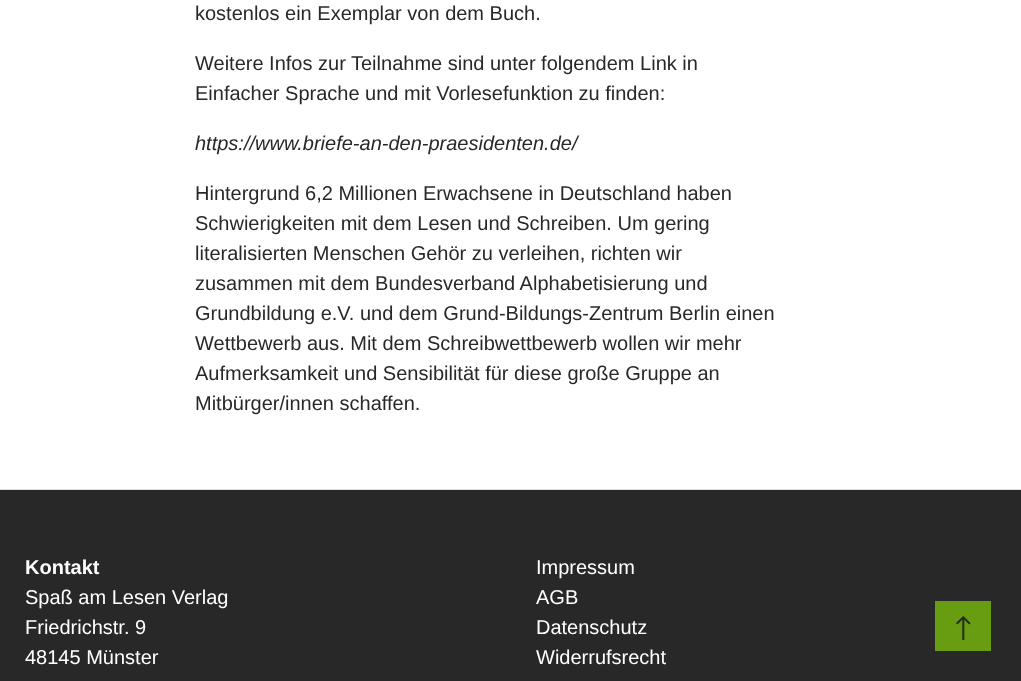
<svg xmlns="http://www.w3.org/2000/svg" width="1021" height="681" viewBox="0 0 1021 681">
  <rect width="100%" height="100%" fill="#ffffff"/>
  <text x="195" y="20" font-family="Liberation Sans" font-size="20" fill="#282828">kostenlos ein Exemplar von dem Buch.</text>
  <text x="195" y="70" font-family="Liberation Sans" font-size="20" fill="#282828">Weitere Infos zur Teilnahme sind unter folgendem Link in</text>
  <text x="195" y="100" font-family="Liberation Sans" font-size="20" fill="#282828">Einfacher Sprache und mit Vorlesefunktion zu finden:</text>
  <text x="195" y="150" font-family="Liberation Sans" font-size="20" font-style="italic" fill="#282828">https://www.briefe-an-den-praesidenten.de/</text>
  <text x="195" y="200" font-family="Liberation Sans" font-size="20" fill="#282828">Hintergrund 6,2 Millionen Erwachsene in Deutschland haben</text>
  <text x="195" y="230" font-family="Liberation Sans" font-size="20" fill="#282828">Schwierigkeiten mit dem Lesen und Schreiben. Um gering</text>
  <text x="195" y="260" font-family="Liberation Sans" font-size="20" fill="#282828">literalisierten Menschen Gehör zu verleihen, richten wir</text>
  <text x="195" y="290" font-family="Liberation Sans" font-size="20" fill="#282828">zusammen mit dem Bundesverband Alphabetisierung und</text>
  <text x="195" y="320" font-family="Liberation Sans" font-size="20" fill="#282828">Grundbildung e.V. und dem Grund-Bildungs-Zentrum Berlin einen</text>
  <text x="195" y="350" font-family="Liberation Sans" font-size="20" fill="#282828">Wettbewerb aus. Mit dem Schreibwettbewerb wollen wir mehr</text>
  <text x="195" y="380" font-family="Liberation Sans" font-size="20" fill="#282828">Aufmerksamkeit und Sensibilität für diese große Gruppe an</text>
  <text x="195" y="410" font-family="Liberation Sans" font-size="20" fill="#282828">Mitbürger/innen schaffen.</text>
  <rect x="0" y="490" width="1021" height="191" fill="#282828"/>
  <rect x="0" y="489" width="1021" height="1" fill="#dfdedd"/>
  <text x="25" y="574" font-family="Liberation Sans" font-size="20" font-weight="bold" fill="#ffffff">Kontakt</text>
  <text x="25" y="604" font-family="Liberation Sans" font-size="20" fill="#ffffff">Spaß am Lesen Verlag</text>
  <text x="25" y="634" font-family="Liberation Sans" font-size="20" fill="#ffffff">Friedrichstr. 9</text>
  <text x="25" y="664" font-family="Liberation Sans" font-size="20" fill="#ffffff">48145 Münster</text>
  <text x="536" y="574" font-family="Liberation Sans" font-size="20" fill="#ffffff">Impressum</text>
  <text x="536" y="604" font-family="Liberation Sans" font-size="20" fill="#ffffff">AGB</text>
  <text x="536" y="634" font-family="Liberation Sans" font-size="20" fill="#ffffff">Datenschutz</text>
  <text x="536" y="664" font-family="Liberation Sans" font-size="20" fill="#ffffff">Widerrufsrecht</text>
  <rect x="935" y="601" width="56" height="50" fill="#689d11"/>
  <image x="956" y="616" width="15" height="24" href="img1.png"/>
</svg>
